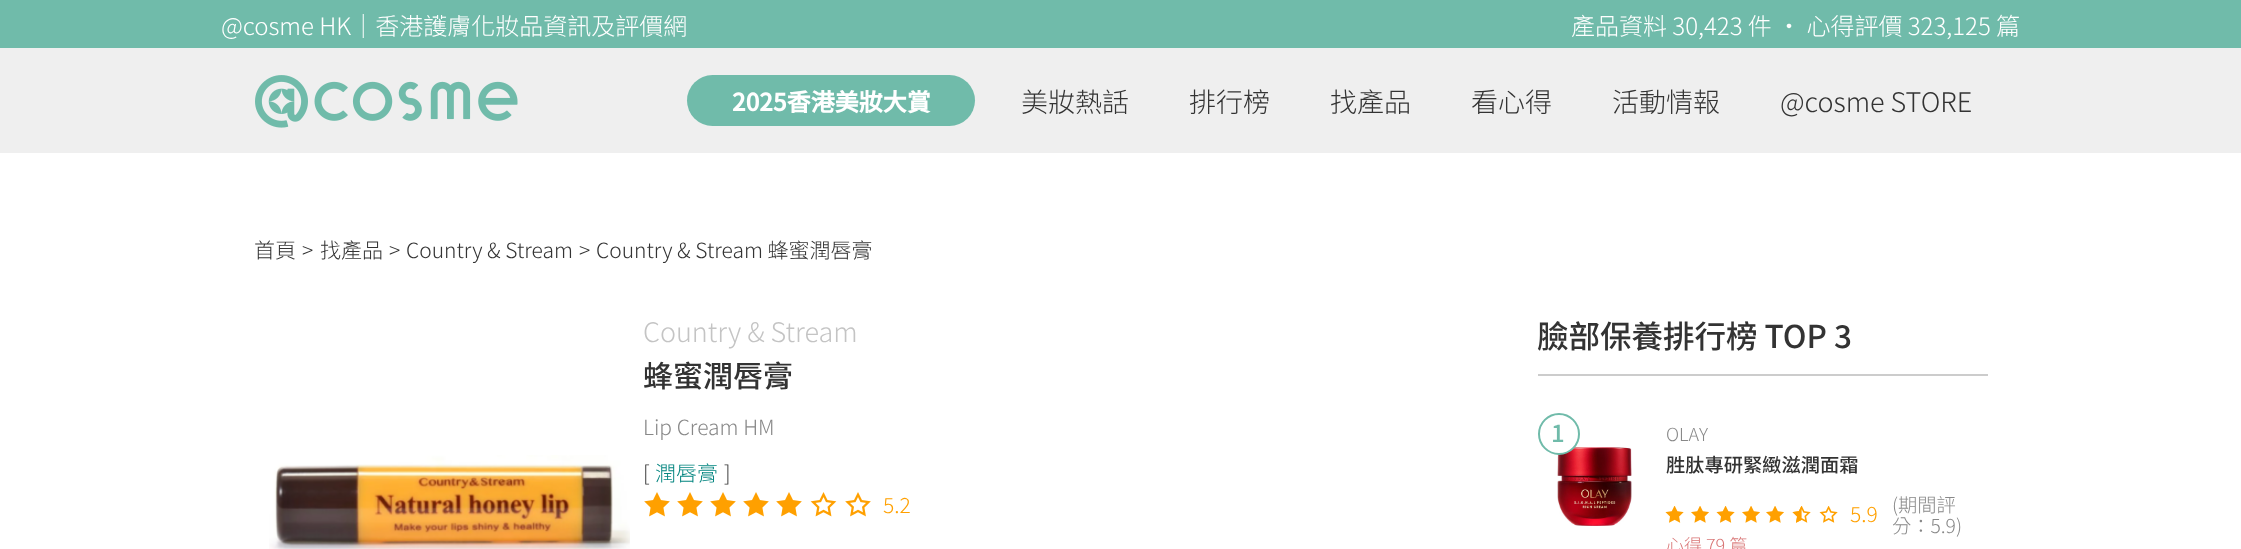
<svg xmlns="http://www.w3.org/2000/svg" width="2241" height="549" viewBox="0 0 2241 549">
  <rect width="100%" height="100%" fill="#ffffff"/>
  <rect x="0" y="0" width="2241" height="48" fill="#70bbaa"/>
  <text x="221" y="35" font-family="Noto Sans TC" font-size="24" font-weight="300" fill="#ffffff">@cosme HK｜香港護膚化妝品資訊及評價網</text>
  <text x="1571" y="35" font-family="Noto Sans TC" font-size="24" font-weight="300" fill="#ffffff">產品資料 30,423 件 · 心得評價 323,125 篇</text>
  <rect x="0" y="48" width="2241" height="105" fill="#efefef"/>
  <image x="255" y="75" width="263" height="53" href="img1.png"/>
  <rect x="687" y="75" width="288" height="51" rx="25.5" fill="#70bbaa"/>
  <text x="732" y="111" font-family="Noto Sans TC" font-size="24" font-weight="bold" fill="#ffffff">2025香港美妝大賞</text>
  <text x="1021" y="112" font-family="Noto Sans TC" font-size="27" font-weight="300" fill="#333333">美妝熱話</text>
  <text x="1189" y="112" font-family="Noto Sans TC" font-size="27" font-weight="300" fill="#333333">排行榜</text>
  <text x="1330" y="112" font-family="Noto Sans TC" font-size="27" font-weight="300" fill="#333333">找產品</text>
  <text x="1471" y="112" font-family="Noto Sans TC" font-size="27" font-weight="300" fill="#333333">看心得</text>
  <text x="1612" y="112" font-family="Noto Sans TC" font-size="27" font-weight="300" fill="#333333">活動情報</text>
  <text x="1780" y="112" font-family="Noto Sans TC" font-size="27" font-weight="300" fill="#333333">@cosme STORE</text>
  <text x="254" y="258" font-family="Noto Sans TC" font-size="21" font-weight="300" fill="#333333">首頁</text>
  <text x="302" y="258" font-family="Noto Sans TC" font-size="21" font-weight="300" fill="#333333">&gt;</text>
  <text x="320" y="258" font-family="Noto Sans TC" font-size="21" font-weight="300" fill="#333333">找產品</text>
  <text x="389" y="258" font-family="Noto Sans TC" font-size="21" font-weight="300" fill="#333333">&gt;</text>
  <text x="406" y="258" font-family="Noto Sans TC" font-size="21" font-weight="300" fill="#333333">Country &amp; Stream</text>
  <text x="579" y="258" font-family="Noto Sans TC" font-size="21" font-weight="300" fill="#333333">&gt;</text>
  <text x="596" y="258" font-family="Noto Sans TC" font-size="21" font-weight="300" fill="#333333">Country &amp; Stream 蜂蜜潤唇膏</text>
  <image x="269" y="455" width="361" height="94" href="img2.png"/>
  <text x="643" y="342" font-family="Noto Sans TC" font-size="27" font-weight="300" fill="#c4c4c4">Country &amp; Stream</text>
  <text x="643" y="387" font-family="Noto Sans TC" font-size="30" font-weight="500" fill="#333333">蜂蜜潤唇膏</text>
  <text x="643" y="435" font-family="Noto Sans TC" font-size="21" font-weight="300" fill="#888888">Lip Cream HM</text>
  <text x="643" y="481" font-family="Noto Sans TC" font-size="21" font-weight="300" fill="#333333">[</text>
  <text x="655" y="481" font-family="Noto Sans TC" font-size="21" font-weight="300" fill="#068681">潤唇膏</text>
  <text x="724" y="481" font-family="Noto Sans TC" font-size="21" font-weight="300" fill="#333333">]</text>
  <image x="644" y="492" width="26" height="25" href="img3.png"/>
  <image x="677" y="492" width="26" height="25" href="img3.png"/>
  <image x="710" y="492" width="26" height="25" href="img3.png"/>
  <image x="743" y="492" width="26" height="25" href="img3.png"/>
  <image x="776" y="492" width="26" height="25" href="img3.png"/>
  <image x="810" y="492" width="27" height="25" href="img4.png"/>
  <image x="845" y="492" width="26" height="25" href="img5.png"/>
  <text x="883" y="513" font-family="Noto Sans TC" font-size="21" font-weight="300" fill="#ffa000">5.2</text>
  <rect x="1538" y="374" width="450" height="2" fill="#cccccc"/>
  <text x="1537" y="348" font-family="Noto Sans TC" font-size="31.5" font-weight="500" fill="#333333">臉部保養排行榜 TOP 3</text>
  <image x="1557" y="447" width="75" height="79" href="img6.png"/>
  <circle cx="1559" cy="434" r="20" fill="#ffffff" stroke="#70bbaa" stroke-width="2"/>
  <text x="1551" y="442" font-family="Noto Sans TC" font-size="24" font-weight="500" fill="#70bbaa">1</text>
  <text x="1666" y="441" font-family="Noto Sans TC" font-size="18" font-weight="300" fill="#888888">OLAY</text>
  <text x="1666" y="472" font-family="Noto Sans TC" font-size="19.25" font-weight="500" fill="#333333">胜肽專研緊緻滋潤面霜</text>
  <image x="1665" y="506" width="19" height="17" href="img7.png"/>
  <image x="1691" y="506" width="18" height="17" href="img8.png"/>
  <image x="1716" y="506" width="19" height="17" href="img7.png"/>
  <image x="1742" y="506" width="18" height="17" href="img8.png"/>
  <image x="1766" y="506" width="18" height="17" href="img8.png"/>
  <image x="1792" y="506" width="19" height="17" href="img9.png"/>
  <image x="1819" y="506" width="19" height="17" href="img10.png"/>
  <text x="1850" y="522" font-family="Noto Sans TC" font-size="21" font-weight="300" fill="#ffa000">5.9</text>
  <text x="1892" y="512" font-family="Noto Sans TC" font-size="19.25" font-weight="300" fill="#888888">(期間評</text>
  <text x="1892" y="533" font-family="Noto Sans TC" font-size="19.25" font-weight="300" fill="#888888">分：5.9)</text>
  <text x="1666" y="552" font-family="Noto Sans TC" font-size="18" font-weight="300" fill="#d97777">心得 79 篇</text>
</svg>
